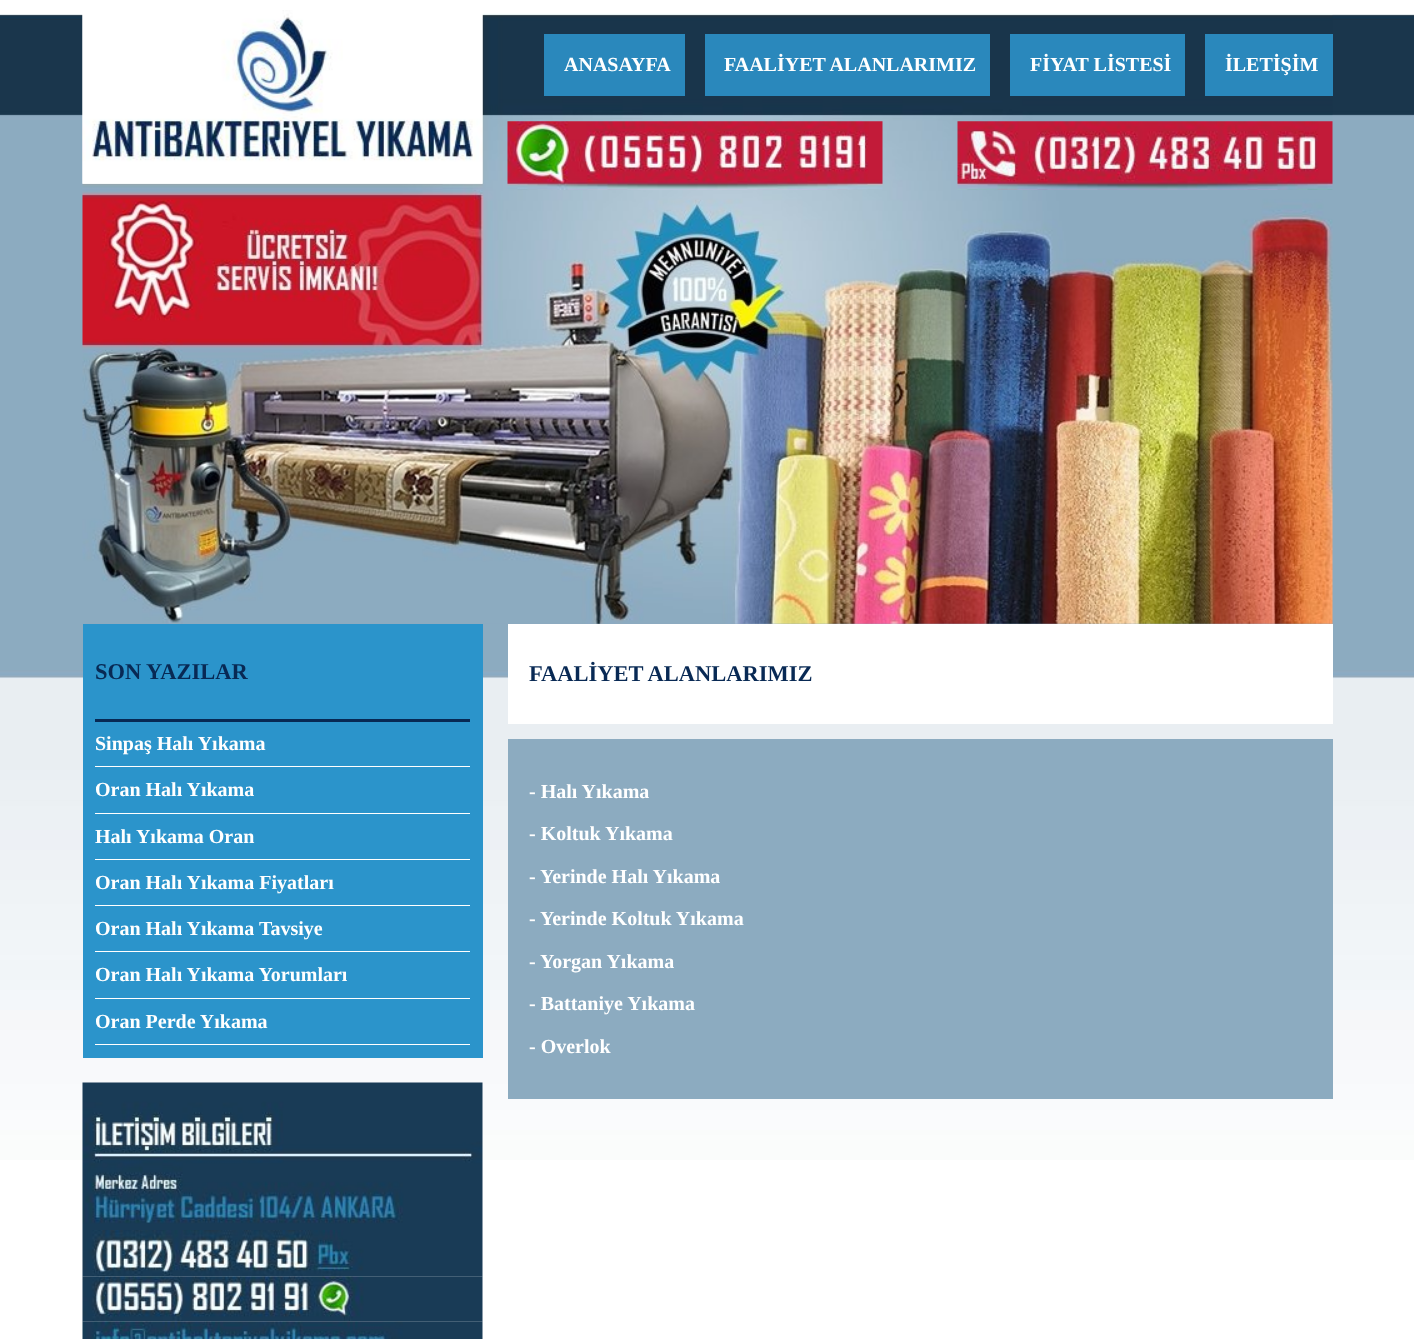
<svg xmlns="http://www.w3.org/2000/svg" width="1414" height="1339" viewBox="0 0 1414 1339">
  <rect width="100%" height="100%" fill="#ffffff"/>
  <image x="0" y="14" width="1414" height="1146" href="img1.png"/>
  <image x="82" y="13" width="1251" height="611" href="img2.png"/>
  <image x="82" y="10" width="401" height="174" href="img3.png"/>
  <rect x="544" y="34" width="141" height="62" fill="#2a88bc"/>
  <text x="564" y="71" font-family="Liberation Serif" font-size="20" font-weight="bold" fill="#ffffff">ANASAYFA</text>
  <rect x="705" y="34" width="285" height="62" fill="#2a88bc"/>
  <text x="724" y="71" font-family="Liberation Serif" font-size="20" font-weight="bold" fill="#ffffff">FAALİYET ALANLARIMIZ</text>
  <rect x="1010" y="34" width="175" height="62" fill="#2a88bc"/>
  <text x="1030" y="71" font-family="Liberation Serif" font-size="20" font-weight="bold" fill="#ffffff">FİYAT LİSTESİ</text>
  <rect x="1205" y="34" width="128" height="62" fill="#2a88bc"/>
  <text x="1225" y="71" font-family="Liberation Serif" font-size="20" font-weight="bold" fill="#ffffff">İLETİŞİM</text>
  <image x="507" y="121" width="376" height="69" href="img4.png"/>
  <image x="957" y="121" width="376" height="69" href="img5.png"/>
  <rect x="83" y="624" width="400" height="434" fill="#2b94cb"/>
  <rect x="95" y="719" width="375" height="3" fill="#082954"/>
  <text x="95" y="679" font-family="Liberation Serif" font-size="22.5" font-weight="bold" fill="#082954">SON YAZILAR</text>
  <rect x="95" y="766" width="375" height="1" fill="#ffffff"/>
  <text x="95" y="750" font-family="Liberation Serif" font-size="20" font-weight="bold" fill="#ffffff">Sinpaş Halı Yıkama</text>
  <rect x="95" y="813" width="375" height="1" fill="#ffffff"/>
  <text x="95" y="796" font-family="Liberation Serif" font-size="20" font-weight="bold" fill="#ffffff">Oran Halı Yıkama</text>
  <rect x="95" y="859" width="375" height="1" fill="#ffffff"/>
  <text x="95" y="843" font-family="Liberation Serif" font-size="20" font-weight="bold" fill="#ffffff">Halı Yıkama Oran</text>
  <rect x="95" y="905" width="375" height="1" fill="#ffffff"/>
  <text x="95" y="889" font-family="Liberation Serif" font-size="20" font-weight="bold" fill="#ffffff">Oran Halı Yıkama Fiyatları</text>
  <rect x="95" y="951" width="375" height="1" fill="#ffffff"/>
  <text x="95" y="935" font-family="Liberation Serif" font-size="20" font-weight="bold" fill="#ffffff">Oran Halı Yıkama Tavsiye</text>
  <rect x="95" y="998" width="375" height="1" fill="#ffffff"/>
  <text x="95" y="981" font-family="Liberation Serif" font-size="20" font-weight="bold" fill="#ffffff">Oran Halı Yıkama Yorumları</text>
  <rect x="95" y="1044" width="375" height="1" fill="#ffffff"/>
  <text x="95" y="1028" font-family="Liberation Serif" font-size="20" font-weight="bold" fill="#ffffff">Oran Perde Yıkama</text>
  <image x="82" y="1082" width="401" height="148" href="img6.png"/>
  <image x="82" y="1230" width="401" height="47" href="img7.png"/>
  <image x="82" y="1276" width="401" height="46" href="img8.png"/>
  <image x="82" y="1321" width="401" height="18" href="img9.png"/>
  <rect x="508" y="624" width="825" height="100" fill="#ffffff"/>
  <text x="529" y="681" font-family="Liberation Serif" font-size="22.5" font-weight="bold" fill="#082954">FAALİYET ALANLARIMIZ</text>
  <rect x="508" y="739" width="825" height="360" fill="#8cabc0"/>
  <text x="529" y="798" font-family="Liberation Serif" font-size="20" font-weight="bold" fill="#ffffff">- Halı Yıkama</text>
  <text x="529" y="840" font-family="Liberation Serif" font-size="20" font-weight="bold" fill="#ffffff">- Koltuk Yıkama</text>
  <text x="529" y="883" font-family="Liberation Serif" font-size="20" font-weight="bold" fill="#ffffff">- Yerinde Halı Yıkama</text>
  <text x="529" y="925" font-family="Liberation Serif" font-size="20" font-weight="bold" fill="#ffffff">- Yerinde Koltuk Yıkama</text>
  <text x="529" y="968" font-family="Liberation Serif" font-size="20" font-weight="bold" fill="#ffffff">- Yorgan Yıkama</text>
  <text x="529" y="1010" font-family="Liberation Serif" font-size="20" font-weight="bold" fill="#ffffff">- Battaniye Yıkama</text>
  <text x="529" y="1053" font-family="Liberation Serif" font-size="20" font-weight="bold" fill="#ffffff">- Overlok</text>
</svg>
